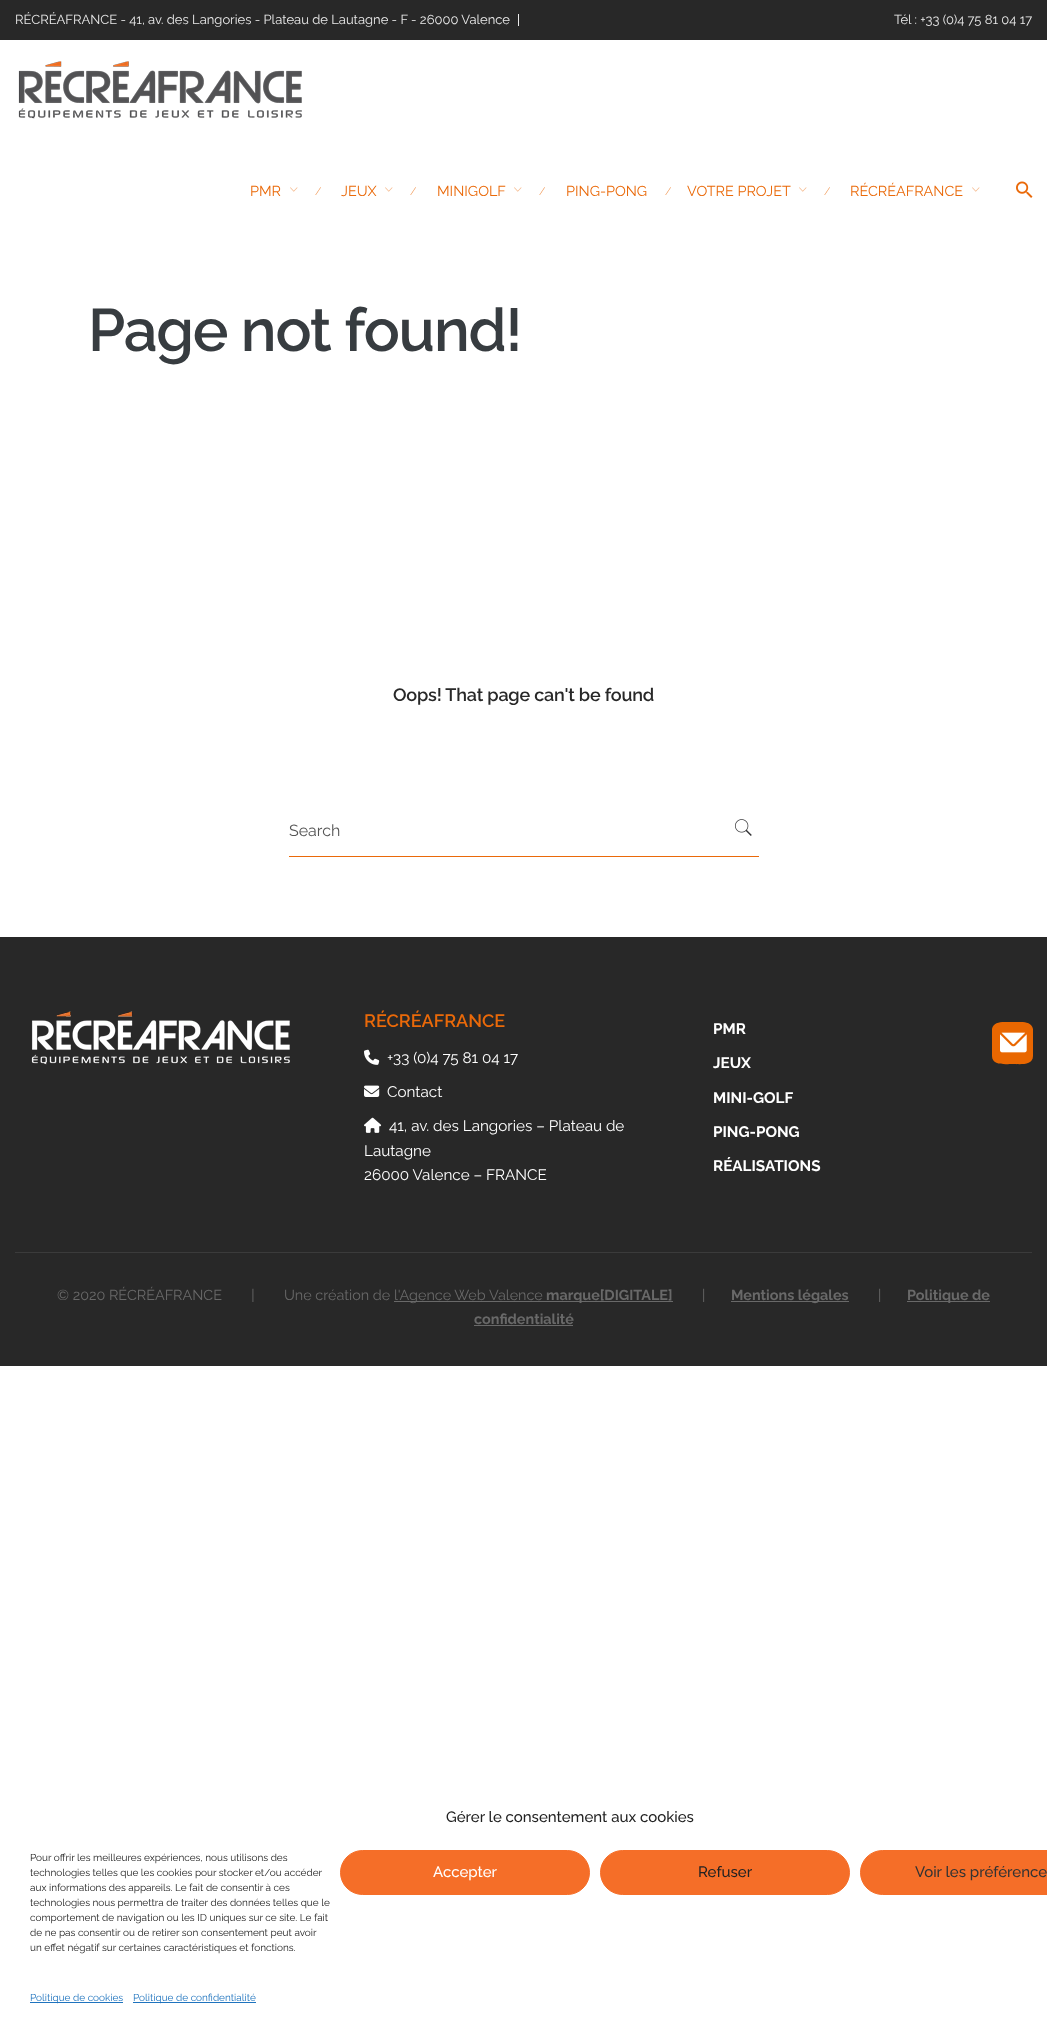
<svg xmlns="http://www.w3.org/2000/svg" width="1047" height="2037" viewBox="0 0 1047 2037">
  <rect width="100%" height="100%" fill="#ffffff"/>
  <rect x="0" y="0" width="1047" height="40" fill="#282828"/>
  <text x="15" y="24" font-family="Raleway" font-size="13" fill="#eaeaea">RÉCRÉAFRANCE - 41, av. des Langories - Plateau de Lautagne - F - 26000 Valence</text>
  <rect x="518" y="14" width="1" height="12" fill="#eaeaea"/>
  <text x="894" y="24" font-family="Raleway" font-size="13" fill="#eaeaea">Tél : +33 (0)4 75 81 04 17</text>
  <image x="18" y="61" width="284" height="58" href="img1.png"/>
  <text x="250" y="196" font-family="Raleway" font-size="14.4" fill="#ea6909">PMR</text>
  <text x="315" y="195" font-family="Raleway" font-size="11" font-weight="300" fill="#ef8f47">/</text>
  <image x="290" y="187" width="8" height="5" href="img2.png"/>
  <text x="341" y="196" font-family="Raleway" font-size="14.4" fill="#ea6909">JEUX</text>
  <text x="410" y="195" font-family="Raleway" font-size="11" font-weight="300" fill="#ef8f47">/</text>
  <image x="385" y="187" width="8" height="5" href="img2.png"/>
  <text x="437" y="196" font-family="Raleway" font-size="14.4" fill="#ea6909">MINIGOLF</text>
  <text x="539" y="195" font-family="Raleway" font-size="11" font-weight="300" fill="#ef8f47">/</text>
  <image x="514" y="187" width="8" height="5" href="img2.png"/>
  <text x="566" y="196" font-family="Raleway" font-size="14.4" fill="#ea6909">PING-PONG</text>
  <text x="665" y="195" font-family="Raleway" font-size="11" font-weight="300" fill="#ef8f47">/</text>
  <text x="687" y="196" font-family="Raleway" font-size="14.4" fill="#ea6909">VOTRE PROJET</text>
  <text x="824" y="195" font-family="Raleway" font-size="11" font-weight="300" fill="#ef8f47">/</text>
  <image x="799" y="187" width="8" height="5" href="img2.png"/>
  <text x="850" y="196" font-family="Raleway" font-size="14.4" fill="#ea6909">RÉCRÉAFRANCE</text>
  <image x="972" y="187" width="8" height="5" href="img2.png"/>
  <image x="1016" y="181" width="17" height="17" href="img3.png"/>
  <text x="88" y="351" font-family="Raleway" font-size="60" font-weight="600" letter-spacing="-1.25" fill="#373c40">Page not found!</text>
  <text x="393" y="701" font-family="Raleway" font-size="18" font-weight="600" letter-spacing="-0.2" fill="#282828">Oops! That page can't be found</text>
  <rect x="289" y="856" width="470" height="1" fill="#ea6909"/>
  <text x="289" y="836" font-family="Raleway" font-size="16" fill="#555555">Search</text>
  <image x="735" y="819" width="17" height="17" href="img4.png"/>
  <rect x="0" y="937" width="1047" height="429" fill="#282828"/>
  <image x="31" y="1011" width="259" height="54" href="img5.png"/>
  <text x="364" y="1027" font-family="Raleway" font-size="18" font-weight="600" fill="#ea6909">RÉCRÉAFRANCE</text>
  <image x="364" y="1049" width="16" height="16" href="img6.png"/>
  <text x="387" y="1063" font-family="Raleway" font-size="15.25" fill="#ffffff">+33 (0)4 75 81 04 17</text>
  <image x="364" y="1085" width="16" height="12" href="img7.png"/>
  <text x="387" y="1097" font-family="Raleway" font-size="15.25" fill="#ffffff">Contact</text>
  <image x="364" y="1117" width="18" height="16" href="img8.png"/>
  <text x="389" y="1131" font-family="Raleway" font-size="15.25" fill="#ffffff">41, av. des Langories – Plateau de</text>
  <text x="364" y="1156" font-family="Raleway" font-size="15.25" fill="#ffffff">Lautagne</text>
  <text x="364" y="1180" font-family="Raleway" font-size="15.25" fill="#ffffff">26000 Valence – FRANCE</text>
  <text x="713" y="1034" font-family="Raleway" font-size="15.25" font-weight="bold" fill="#ffffff">PMR</text>
  <text x="713" y="1068" font-family="Raleway" font-size="15.25" font-weight="bold" fill="#ffffff">JEUX</text>
  <text x="713" y="1103" font-family="Raleway" font-size="15.25" font-weight="bold" fill="#ffffff">MINI-GOLF</text>
  <text x="713" y="1137" font-family="Raleway" font-size="15.25" font-weight="bold" fill="#ffffff">PING-PONG</text>
  <text x="713" y="1171" font-family="Raleway" font-size="15.25" font-weight="bold" fill="#ffffff">RÉALISATIONS</text>
  <rect x="15" y="1252" width="1017" height="1" fill="#3b3b3b"/>
  <text x="57" y="1300" font-family="Raleway" font-size="14.4" fill="#696969" xml:space="preserve">© 2020 RÉCRÉAFRANCE        |        Une création de</text>
  <rect x="394" y="1301" width="279" height="1" fill="#696969"/>
  <text x="394" y="1300" font-family="Raleway" font-size="14.4" fill="#696969">l'Agence Web Valence</text>
  <text x="546" y="1300" font-family="Raleway" font-size="14.4" font-weight="bold" fill="#696969">marque[DIGITALE]</text>
  <text x="702" y="1300" font-family="Raleway" font-size="14.4" fill="#696969">|</text>
  <rect x="731" y="1301" width="118" height="1" fill="#696969"/>
  <text x="731" y="1300" font-family="Raleway" font-size="14.4" font-weight="bold" fill="#696969">Mentions légales</text>
  <text x="878" y="1300" font-family="Raleway" font-size="14.4" fill="#696969">|</text>
  <rect x="907" y="1301" width="83" height="1" fill="#696969"/>
  <text x="907" y="1300" font-family="Raleway" font-size="14.4" font-weight="bold" fill="#696969">Politique de</text>
  <text x="474" y="1324" font-family="Raleway" font-size="14.4" font-weight="bold" fill="#696969">confidentialité</text>
  <rect x="474" y="1325" width="99" height="1" fill="#696969"/>
  <path d="M992 1056V1029C993 1023 999 1022 1004 1022H1021C1026 1022 1032 1023 1033 1029V1056C1033 1066 1019 1064 1013 1064C1006 1064 992 1066 992 1056Z" fill="#e96701"/>
  <image x="1000" y="1032" width="27" height="21" href="img9.png"/>
  <text x="446" y="1822" font-family="Raleway" font-size="15" font-weight="500" fill="#222222">Gérer le consentement aux cookies</text>
  <text x="30" y="1861" font-family="Raleway" font-size="10" fill="#222222">Pour offrir les meilleures expériences, nous utilisons des</text>
  <text x="30" y="1876" font-family="Raleway" font-size="10" fill="#222222">technologies telles que les cookies pour stocker et/ou accéder</text>
  <text x="30" y="1891" font-family="Raleway" font-size="10" fill="#222222">aux informations des appareils. Le fait de consentir à ces</text>
  <text x="30" y="1906" font-family="Raleway" font-size="10" fill="#222222">technologies nous permettra de traiter des données telles que le</text>
  <text x="30" y="1921" font-family="Raleway" font-size="10" fill="#222222">comportement de navigation ou les ID uniques sur ce site. Le fait</text>
  <text x="30" y="1936" font-family="Raleway" font-size="10" fill="#222222">de ne pas consentir ou de retirer son consentement peut avoir</text>
  <text x="30" y="1951" font-family="Raleway" font-size="10" fill="#222222">un effet négatif sur certaines caractéristiques et fonctions.</text>
  <rect x="340.5" y="1850.5" width="249" height="44" rx="22" fill="#f56e28" stroke="#f56e28"/>
  <text x="433" y="1877" font-family="Raleway" font-size="15" font-weight="500" fill="#ffffff">Accepter</text>
  <rect x="600.5" y="1850.5" width="249" height="44" rx="22" fill="#f56e28" stroke="#f56e28"/>
  <text x="698" y="1877" font-family="Raleway" font-size="15" font-weight="500" fill="#222222">Refuser</text>
  <rect x="860.5" y="1850.5" width="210" height="44" rx="22" fill="#f56e28" stroke="#f56e28"/>
  <text x="915" y="1877" font-family="Raleway" font-size="15" font-weight="500" fill="#333333">Voir les préférence</text>
  <rect x="30" y="2002" width="93" height="1" fill="#1e73be"/>
  <text x="30" y="2001" font-family="Raleway" font-size="10" fill="#1e73be">Politique de cookies</text>
  <rect x="133" y="2002" width="123" height="1" fill="#1e73be"/>
  <text x="133" y="2001" font-family="Raleway" font-size="10" fill="#1e73be">Politique de confidentialité</text>
</svg>
